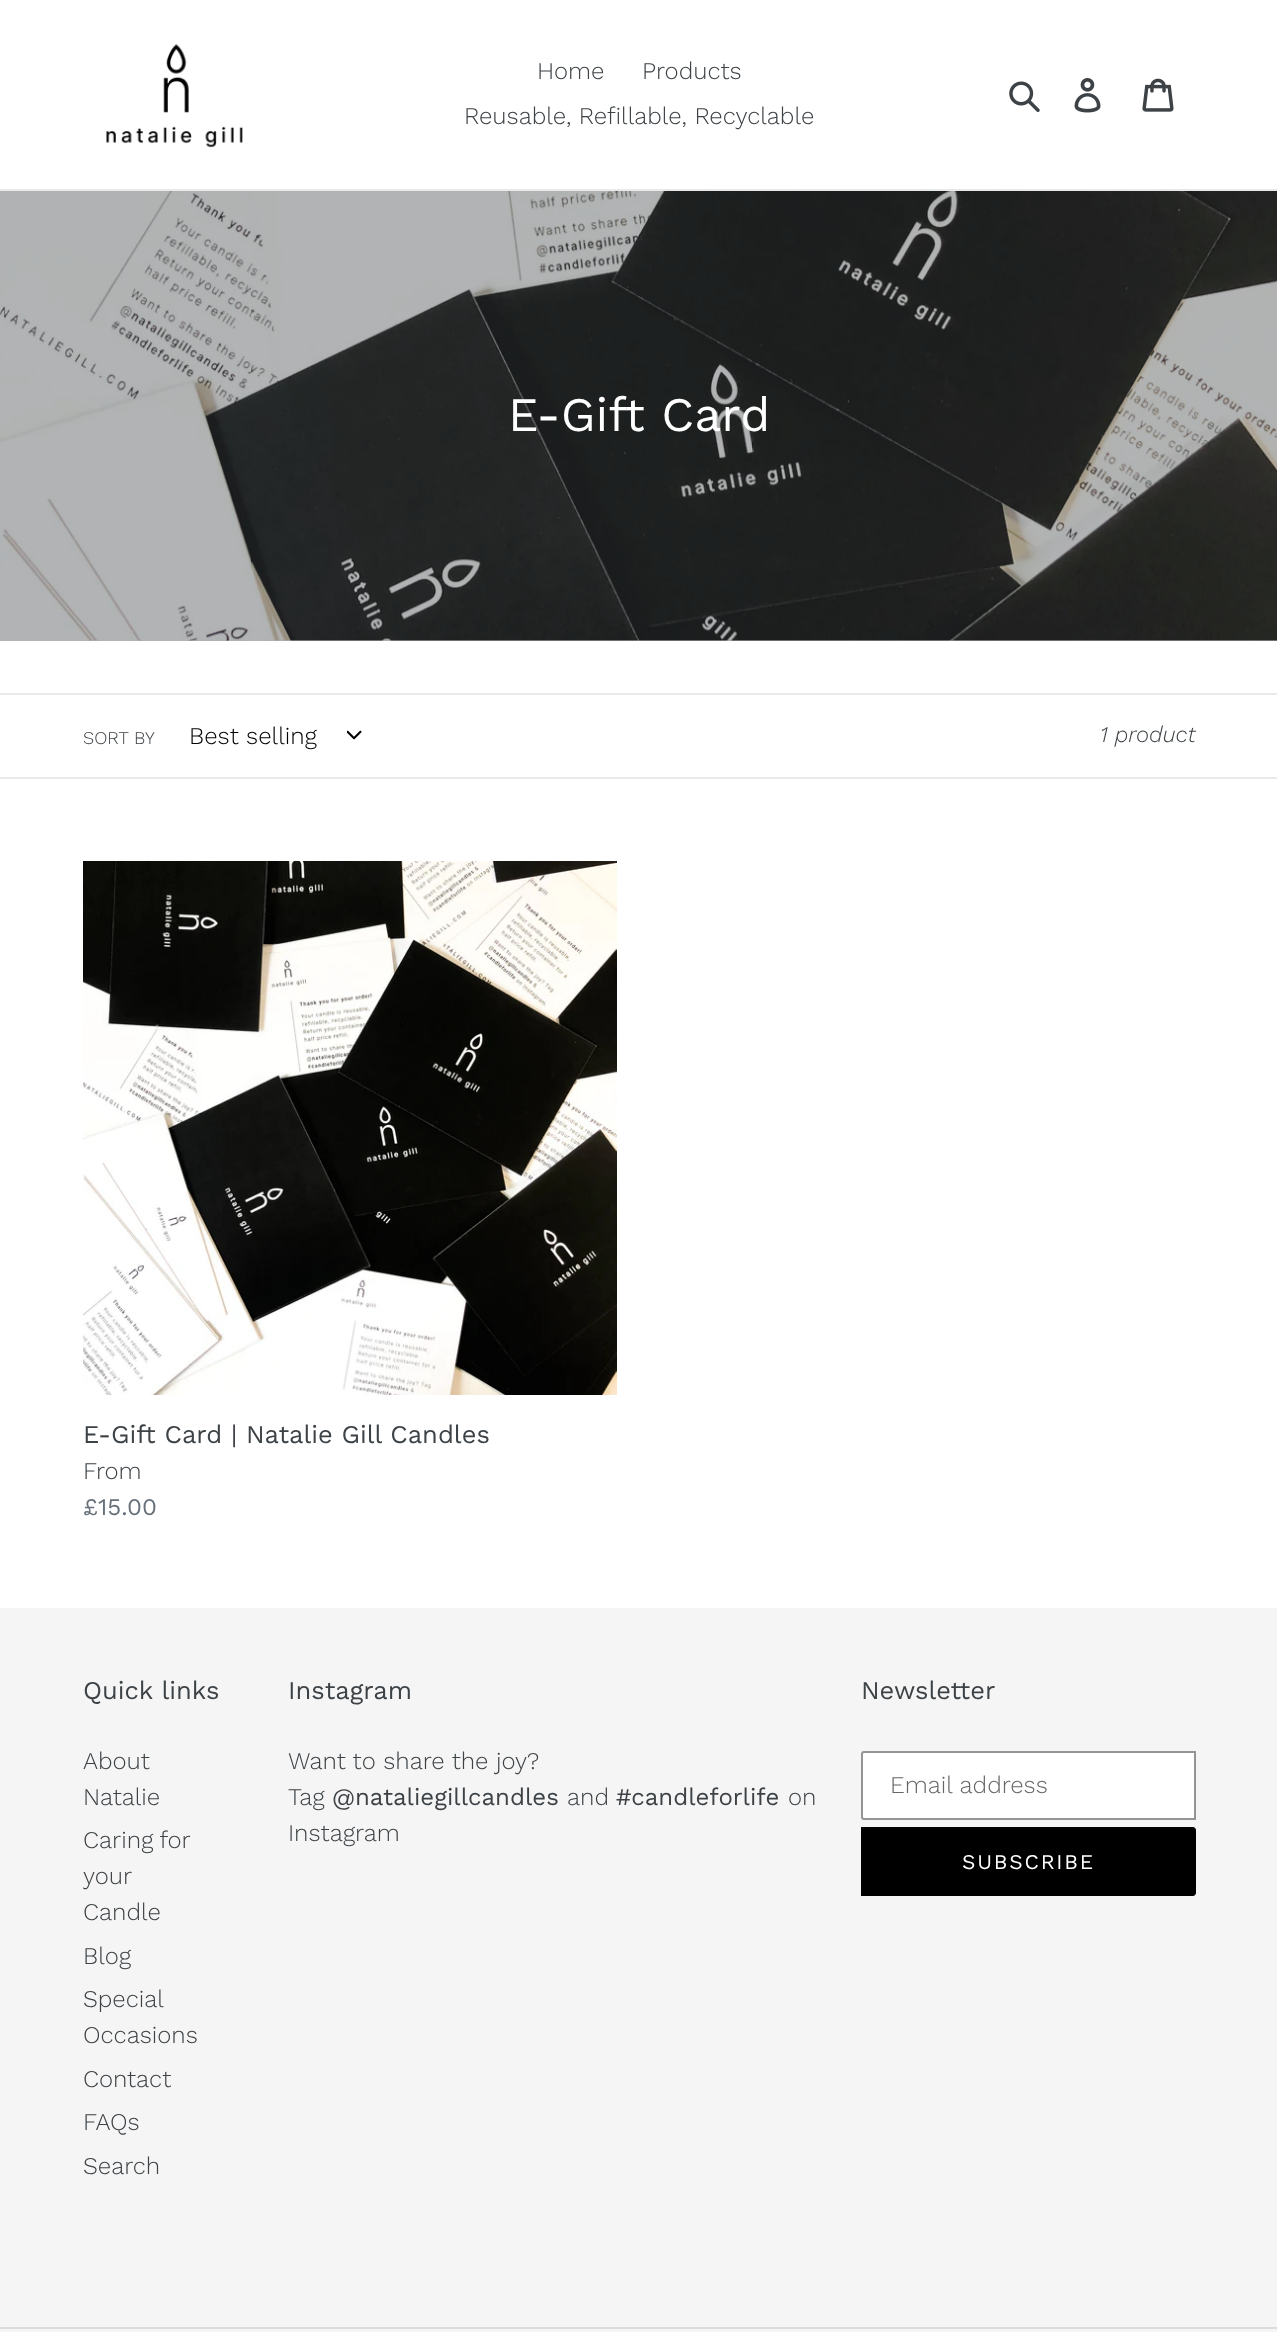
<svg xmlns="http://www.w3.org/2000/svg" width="1277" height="2332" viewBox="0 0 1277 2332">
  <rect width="100%" height="100%" fill="#ffffff"/>
  <rect x="0" y="640" width="1277" height="1" fill="#b1b3b5"/>
  <rect x="0" y="189" width="1277" height="2" fill="#e8e9eb"/>
  <image x="106" y="44" width="137" height="104" href="img1.png"/>
  <text x="537" y="79" font-family="Work Sans" font-size="24" font-weight="300" fill="#3d4246">Home</text>
  <text x="642" y="79" font-family="Work Sans" font-size="24" font-weight="300" fill="#3d4246">Products</text>
  <text x="464" y="124" font-family="Work Sans" font-size="24" font-weight="300" fill="#3d4246">Reusable, Refillable, Recyclable</text>
  <image x="1009" y="81" width="31" height="31" href="img2.png"/>
  <image x="1074" y="78" width="27" height="35" href="img3.png"/>
  <image x="1142" y="78" width="32" height="34" href="img4.png"/>
  <image x="0" y="191" width="1277" height="450" href="img5.png"/>
  <text x="508" y="431" font-family="Work Sans" font-size="48" fill="#ffffff">E-Gift Card</text>
  <rect x="0" y="693" width="1277" height="2" fill="#e8e9eb"/>
  <rect x="0" y="777" width="1277" height="2" fill="#e8e9eb"/>
  <text x="83" y="744" font-family="Work Sans" font-size="18" font-weight="300" fill="#3d4246">SORT BY</text>
  <text x="189" y="744" font-family="Work Sans" font-size="24" font-weight="300" fill="#000000">Best selling</text>
  <image x="347" y="730" width="15" height="10" href="img6.png"/>
  <text x="1100" y="742" font-family="Work Sans" font-size="22.5" font-weight="300" font-style="italic" fill="#3d4246">1 product</text>
  <image x="83" y="861" width="534" height="534" href="img7.png"/>
  <text x="83" y="1443" font-family="Work Sans" font-size="25.5" fill="#3d4246">E-Gift Card | Natalie Gill Candles</text>
  <text x="83" y="1479" font-family="Work Sans" font-size="24" font-weight="300" fill="#3d4246">From</text>
  <text x="83" y="1515" font-family="Work Sans" font-size="24" fill="#69727b">£15.00</text>
  <rect x="0" y="1608" width="1277" height="724" fill="#f5f5f5"/>
  <text x="83" y="1699" font-family="Work Sans" font-size="25.5" fill="#3d4246">Quick links</text>
  <text x="83" y="1769" font-family="Work Sans" font-size="24" font-weight="300" fill="#3d4246">About</text>
  <text x="83" y="1805" font-family="Work Sans" font-size="24" font-weight="300" fill="#3d4246">Natalie</text>
  <text x="83" y="1848" word-spacing="-1" font-family="Work Sans" font-size="24" font-weight="300" fill="#3d4246">Caring for</text>
  <text x="83" y="1884" font-family="Work Sans" font-size="24" font-weight="300" fill="#3d4246">your</text>
  <text x="83" y="1920" font-family="Work Sans" font-size="24" font-weight="300" fill="#3d4246">Candle</text>
  <text x="83" y="1964" font-family="Work Sans" font-size="24" font-weight="300" fill="#3d4246">Blog</text>
  <text x="83" y="2007" font-family="Work Sans" font-size="24" font-weight="300" fill="#3d4246">Special</text>
  <text x="83" y="2043" font-family="Work Sans" font-size="24" font-weight="300" fill="#3d4246">Occasions</text>
  <text x="83" y="2087" font-family="Work Sans" font-size="24" font-weight="300" fill="#3d4246">Contact</text>
  <text x="83" y="2130" font-family="Work Sans" font-size="24" font-weight="300" fill="#3d4246">FAQs</text>
  <text x="83" y="2174" font-family="Work Sans" font-size="24" font-weight="300" fill="#3d4246">Search</text>
  <text x="288" y="1699" font-family="Work Sans" font-size="25.5" fill="#3d4246">Instagram</text>
  <text x="288" y="1769" font-family="Work Sans" font-size="24" font-weight="300" fill="#3d4246">Want to share the joy?</text>
  <text x="288" y="1805" font-family="Work Sans" font-size="24" font-weight="300" fill="#3d4246">Tag</text>
  <text x="332" y="1805" font-family="Work Sans" font-size="24" fill="#3d4246">@nataliegillcandles</text>
  <text x="567" y="1805" font-family="Work Sans" font-size="24" font-weight="300" fill="#3d4246">and</text>
  <text x="616" y="1805" font-family="Work Sans" font-size="24" fill="#3d4246">#candleforlife</text>
  <text x="788" y="1805" font-family="Work Sans" font-size="24" font-weight="300" fill="#3d4246">on</text>
  <text x="288" y="1841" font-family="Work Sans" font-size="24" font-weight="300" fill="#3d4246">Instagram</text>
  <text x="861" y="1699" font-family="Work Sans" font-size="25.5" fill="#3d4246">Newsletter</text>
  <path d="M864 1752H1195V1819H864C863 1819 862 1818 862 1817V1754C862 1753 863 1752 864 1752Z" fill="#ffffff" stroke="#949494" stroke-width="2"/>
  <text x="890" y="1793" font-family="Work Sans" font-size="24" font-weight="300" fill="#666666">Email address</text>
  <path d="M861 1827H1193C1194.5 1827 1196 1828.5 1196 1830V1893C1196 1894.5 1194.5 1896 1193 1896H861Z" fill="#000000"/>
  <text x="962" y="1869" font-family="Work Sans" font-size="21" letter-spacing="1.75" fill="#ffffff">SUBSCRIBE</text>
  <rect x="0" y="2327" width="1277" height="2" fill="#dcdcdc"/>
</svg>
